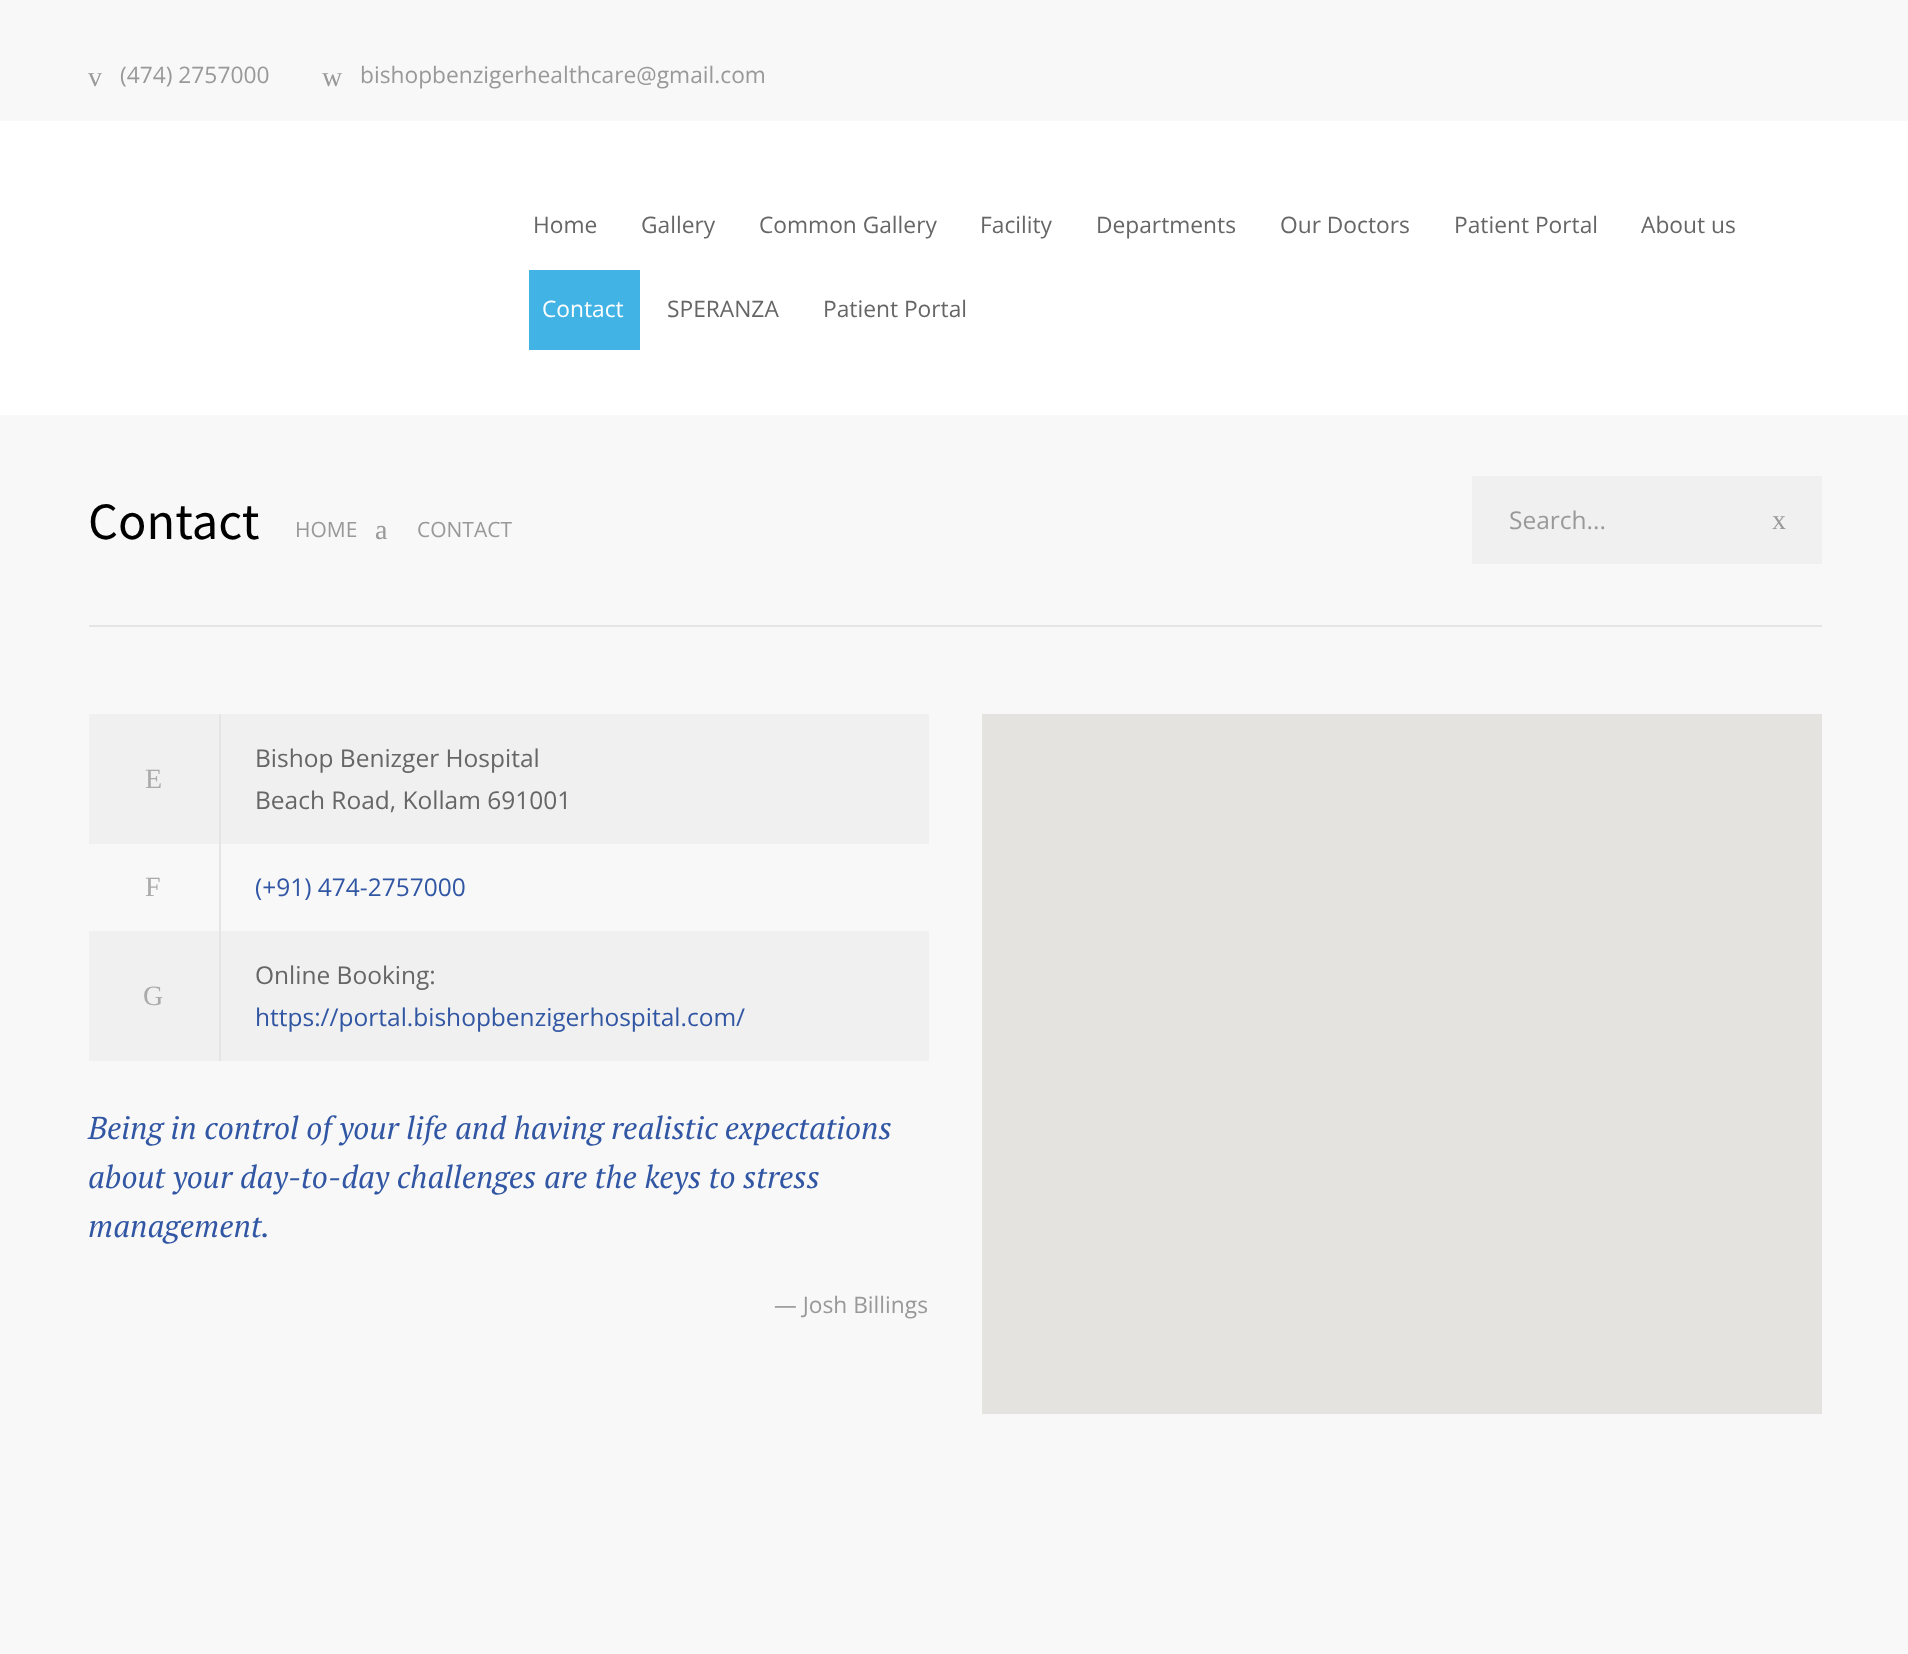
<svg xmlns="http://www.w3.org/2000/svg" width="1908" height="1654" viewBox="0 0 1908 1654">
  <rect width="100%" height="100%" fill="#f8f8f8"/>
  <text x="88" y="86" font-family="Liberation Serif" font-size="28" fill="#999999">v</text>
  <text x="120" y="83" font-family="Open Sans" font-size="22.75" fill="#999999">(474) 2757000</text>
  <text x="322" y="86" font-family="Liberation Serif" font-size="28" fill="#999999">w</text>
  <text x="360" y="83" font-family="Open Sans" font-size="22.75" fill="#999999">bishopbenzigerhealthcare@gmail.com</text>
  <rect x="0" y="121" width="1908" height="294" fill="#ffffff"/>
  <text x="533" y="233" font-family="Open Sans" font-size="22.75" fill="#666666">Home</text>
  <text x="641" y="233" font-family="Open Sans" font-size="22.75" fill="#666666">Gallery</text>
  <text x="759" y="233" font-family="Open Sans" font-size="22.75" fill="#666666">Common Gallery</text>
  <text x="980" y="233" font-family="Open Sans" font-size="22.75" fill="#666666">Facility</text>
  <text x="1096" y="233" font-family="Open Sans" font-size="22.75" fill="#666666">Departments</text>
  <text x="1280" y="233" font-family="Open Sans" font-size="22.75" fill="#666666">Our Doctors</text>
  <text x="1454" y="233" font-family="Open Sans" font-size="22.75" fill="#666666">Patient Portal</text>
  <text x="1641" y="233" font-family="Open Sans" font-size="22.75" fill="#666666">About us</text>
  <rect x="529" y="270" width="111" height="80" fill="#42b3e5"/>
  <text x="542" y="317" font-family="Open Sans" font-size="22.75" fill="#ffffff">Contact</text>
  <text x="667" y="317" font-family="Open Sans" font-size="22.75" fill="#666666">SPERANZA</text>
  <text x="823" y="317" font-family="Open Sans" font-size="22.75" fill="#666666">Patient Portal</text>
  <rect x="89" y="625" width="1733" height="2" fill="#e5e5e5"/>
  <text x="88" y="539" font-family="Source Sans Pro" font-size="52.5" fill="#000000">Contact</text>
  <text x="295" y="537" font-family="Open Sans" font-size="21" fill="#999999">HOME</text>
  <text x="375" y="539" font-family="Liberation Serif" font-size="28" fill="#999999">a</text>
  <text x="417" y="537" font-family="Open Sans" font-size="21" fill="#999999">CONTACT</text>
  <rect x="1472" y="476" width="350" height="88" fill="#f0f0f0"/>
  <text x="1509" y="529" font-family="Open Sans" font-size="24.5" fill="#999999">Search...</text>
  <text x="1772" y="529" font-family="Liberation Serif" font-size="28" fill="#999999">x</text>
  <rect x="89" y="714" width="840" height="130" fill="#f0f0f0"/>
  <rect x="219" y="714" width="2" height="217" fill="#e5e5e5"/>
  <text x="145" y="788" font-family="Liberation Serif" font-size="28" fill="#aaaaaa">E</text>
  <text x="255" y="767" font-family="Open Sans" font-size="24.5" fill="#666666">Bishop Benizger Hospital</text>
  <text x="255" y="809" font-family="Open Sans" font-size="24.5" fill="#666666">Beach Road, Kollam 691001</text>
  <text x="145" y="896" font-family="Liberation Serif" font-size="28" fill="#aaaaaa">F</text>
  <text x="255" y="896" font-family="Open Sans" font-size="24.5" fill="#3156a3">(+91) 474-2757000</text>
  <rect x="89" y="931" width="840" height="130" fill="#f0f0f0"/>
  <rect x="219" y="931" width="2" height="130" fill="#e5e5e5"/>
  <text x="143" y="1005" font-family="Liberation Serif" font-size="28" fill="#aaaaaa">G</text>
  <text x="255" y="984" font-family="Open Sans" font-size="24.5" fill="#666666">Online Booking:</text>
  <text x="255" y="1026" font-family="Open Sans" font-size="24.5" fill="#3156a3">https://portal.bishopbenzigerhospital.com/</text>
  <text x="88" y="1139" font-family="PT Serif" font-size="31.5" font-style="italic" fill="#3156a3">Being in control of your life and having realistic expectations</text>
  <text x="88" y="1188" font-family="PT Serif" font-size="31.5" font-style="italic" fill="#3156a3">about your day-to-day challenges are the keys to stress</text>
  <text x="88" y="1237" font-family="PT Serif" font-size="31.5" font-style="italic" fill="#3156a3">management.</text>
  <text x="774" y="1313" font-family="Open Sans" font-size="22.75" fill="#999999">— Josh Billings</text>
  <rect x="982" y="714" width="840" height="700" fill="#e5e3df"/>
</svg>
